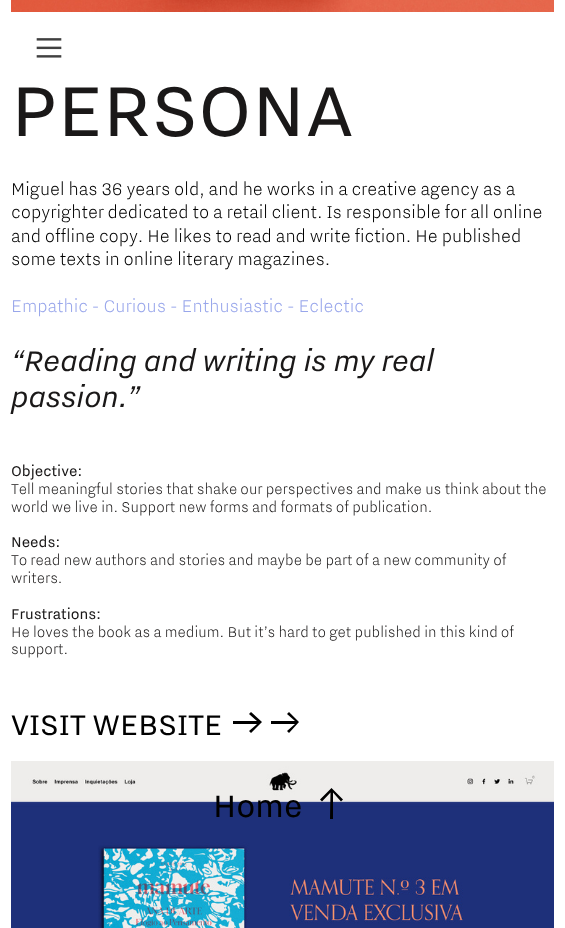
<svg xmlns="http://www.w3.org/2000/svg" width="565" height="928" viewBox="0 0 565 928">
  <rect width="100%" height="100%" fill="#ffffff"/>
  <image x="36" y="38" width="26" height="20" href="img1.png"/>
  <image x="11" y="0" width="543" height="12" href="img2.png"/>
  <text x="11" y="136" font-family="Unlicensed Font" font-size="89" fill="#1a1818">PERSONA</text>
  <text x="11" y="195" font-family="'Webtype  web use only'" font-size="21.4" font-weight="300" fill="#000000">Miguel has 36 years old, and he works in a creative agency as a</text>
  <text x="11" y="218" font-family="'Webtype  web use only'" font-size="21.4" font-weight="300" fill="#000000">copyrighter dedicated to a retail client. Is responsible for all online</text>
  <text x="11" y="242" font-family="'Webtype  web use only'" font-size="21.4" font-weight="300" fill="#000000">and offline copy. He likes to read and write fiction. He published</text>
  <text x="11" y="265" font-family="'Webtype  web use only'" font-size="21.4" font-weight="300" fill="#000000">some texts in online literary magazines.</text>
  <text x="11" y="312" font-family="'Webtype  web use only'" font-size="21.4" font-weight="300" fill="#98a6eb">Empathic - Curious - Enthusiastic - Eclectic</text>
  <text x="11" y="371" font-family="Unlicensed Font" font-size="35.75" font-style="italic" fill="#1a1818">“Reading and writing is my real</text>
  <text x="11" y="407" font-family="Unlicensed Font" font-size="35.75" font-style="italic" fill="#1a1818">passion.”</text>
  <text x="11" y="476" font-family="Unlicensed Font" font-size="17.85" fill="#1a1818">Objective:</text>
  <text x="11" y="494" font-family="'Webtype  web use only'" font-size="17.85" font-weight="300" fill="#1a1818">Tell meaningful stories that shake our perspectives and make us think about the</text>
  <text x="11" y="512" font-family="'Webtype  web use only'" font-size="17.85" font-weight="300" fill="#1a1818">world we live in. Support new forms and formats of publication.</text>
  <text x="11" y="547" font-family="Unlicensed Font" font-size="17.85" fill="#1a1818">Needs:</text>
  <text x="11" y="565" font-family="'Webtype  web use only'" font-size="17.85" font-weight="300" fill="#1a1818">To read new authors and stories and maybe be part of a new community of</text>
  <text x="11" y="583" font-family="'Webtype  web use only'" font-size="17.85" font-weight="300" fill="#1a1818">writers.</text>
  <text x="11" y="619" font-family="Unlicensed Font" font-size="17.85" fill="#1a1818">Frustrations:</text>
  <text x="11" y="637" font-family="'Webtype  web use only'" font-size="17.85" font-weight="300" fill="#1a1818">He loves the book as a medium. But it’s hard to get published in this kind of</text>
  <text x="11" y="654" font-family="'Webtype  web use only'" font-size="17.85" font-weight="300" fill="#1a1818">support.</text>
  <text x="11" y="735" font-family="Unlicensed Font" font-size="35.75" fill="#000000">VISIT WEBSITE</text>
  <path d="M233 724H257L249 731L251 733L262 722L251 712L249 714L257 721H233ZM271 724H295L287 731L289 733L299 722L289 712L287 714L295 721H271Z" fill="#000000"/>
  <image x="11" y="761" width="543" height="167" href="img3.png"/>
  <text x="213" y="817" font-family="Unlicensed Font" font-size="39" fill="#000000">Home</text>
  <path d="M333 819V792.5L341 801.5L343 799.5L331.5 788L320 799.5L322 801.5L330.5 792.5L330 819Z" fill="#000000"/>
</svg>
